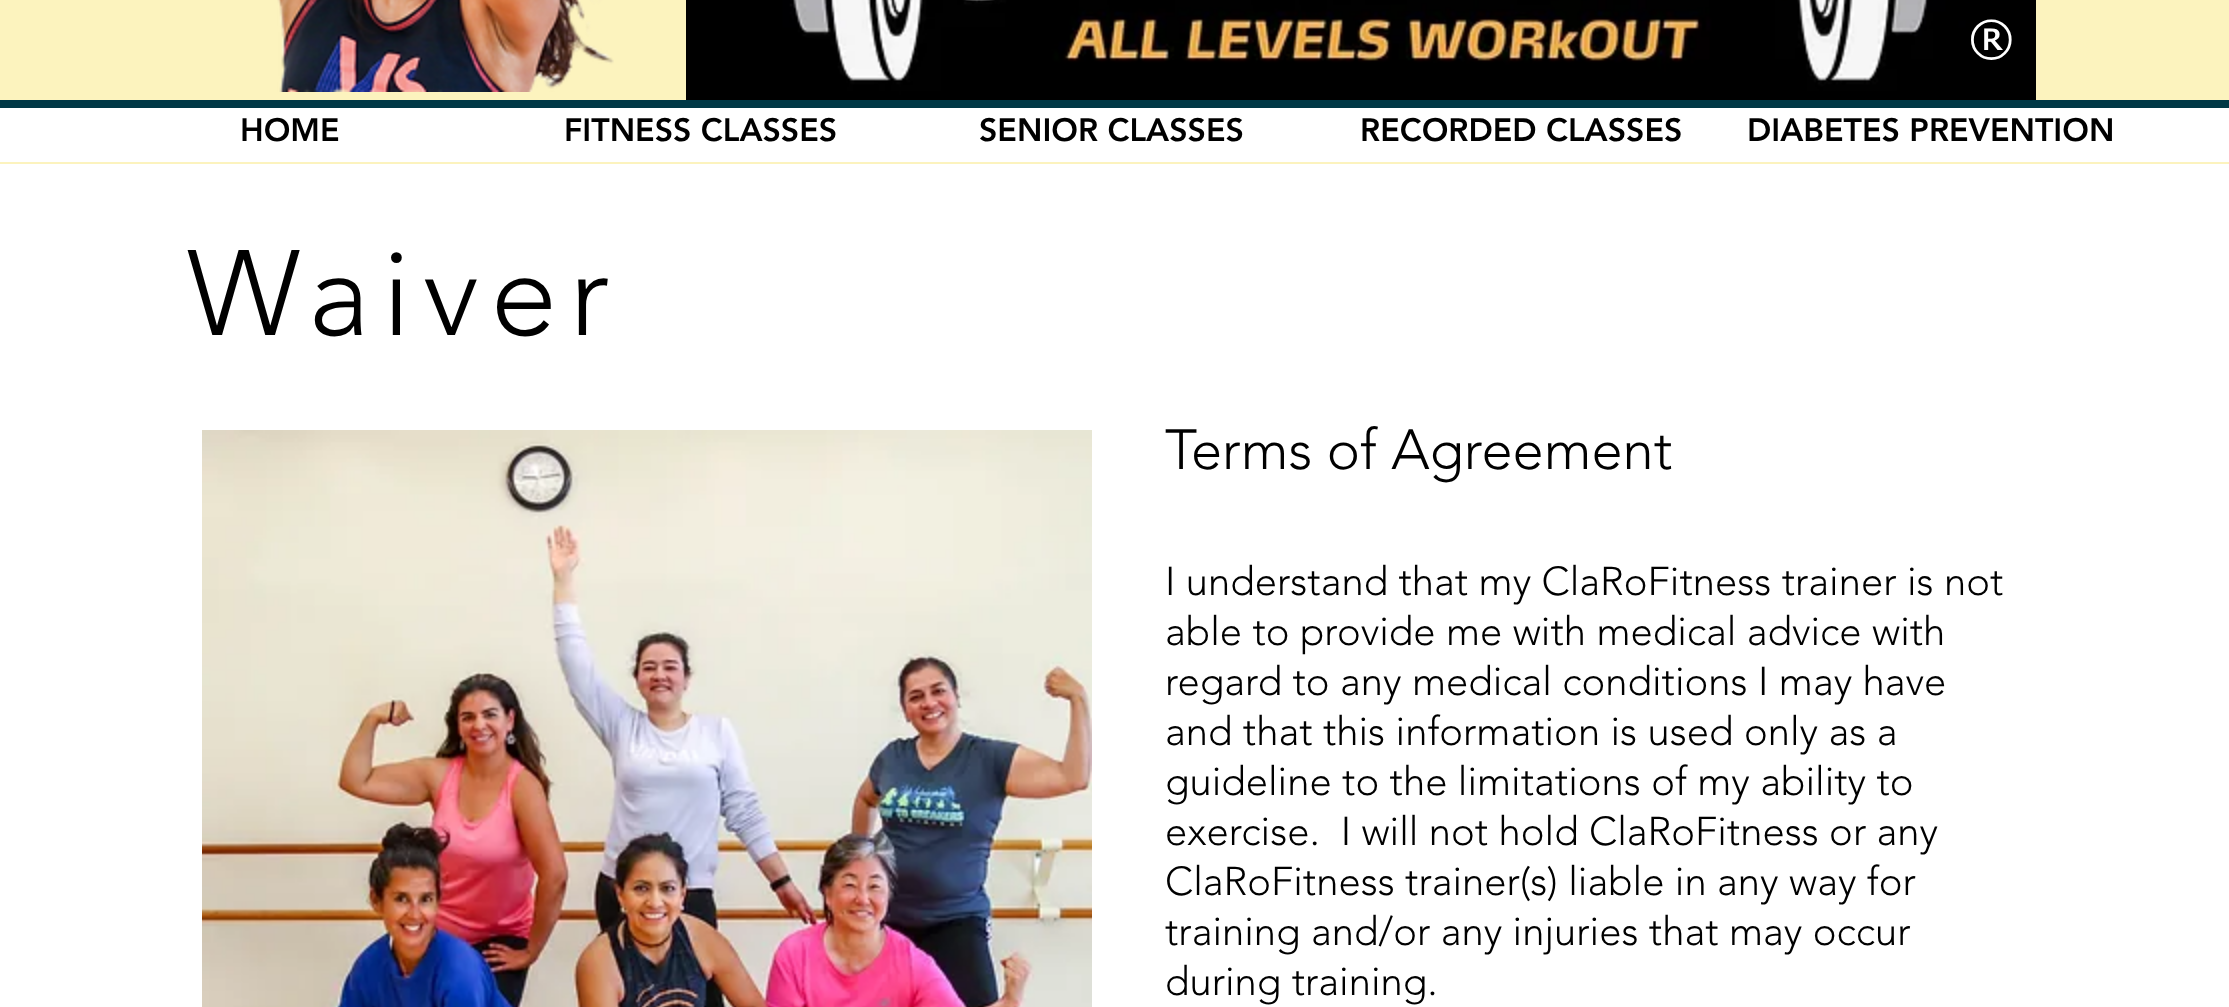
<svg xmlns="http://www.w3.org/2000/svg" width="2229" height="1007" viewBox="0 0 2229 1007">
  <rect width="100%" height="100%" fill="#ffffff"/>
  <rect x="0" y="0" width="2229" height="164" fill="#fcf3be"/>
  <image x="277" y="0" width="337" height="92" href="img1.png"/>
  <image x="686" y="0" width="1350" height="100" href="img2.png"/>
  <text x="1969" y="55" font-family="tahoma" font-size="48" fill="#ffffff">®</text>
  <rect x="0" y="100" width="2229" height="8" fill="#003845"/>
  <rect x="0" y="108" width="2229" height="54" fill="#ffffff"/>
  <text x="240" y="141" font-family="'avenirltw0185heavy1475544'" font-size="32" font-weight="900" fill="#000000">HOME</text>
  <text x="564" y="141" font-family="'avenirltw0185heavy1475544'" font-size="32" font-weight="900" fill="#000000">FITNESS CLASSES</text>
  <text x="979" y="141" font-family="'avenirltw0185heavy1475544'" font-size="32" font-weight="900" fill="#000000">SENIOR CLASSES</text>
  <text x="1360" y="141" font-family="'avenirltw0185heavy1475544'" font-size="32" font-weight="900" fill="#000000">RECORDED CLASSES</text>
  <text x="1747" y="141" font-family="'avenirltw0185heavy1475544'" font-size="32" font-weight="900" fill="#000000">DIABETES PREVENTION</text>
  <text x="187" y="335" font-family="'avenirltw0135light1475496'" font-size="120" font-weight="300" letter-spacing="12" fill="#000000">Waiver</text>
  <image x="202" y="430" width="890" height="577" href="img3.png"/>
  <text x="1165" y="469" font-family="'avenirltw0135light1475496'" font-size="56" font-weight="300" fill="#000000">Terms of Agreement</text>
  <text x="1165" y="595" font-family="'avenirltw0135light1475496'" font-size="40" font-weight="300" fill="#000000">I understand that my ClaRoFitness trainer is not</text>
  <text x="1165" y="645" font-family="'avenirltw0135light1475496'" font-size="40" font-weight="300" fill="#000000">able to provide me with medical advice with</text>
  <text x="1165" y="695" font-family="'avenirltw0135light1475496'" font-size="40" font-weight="300" fill="#000000">regard to any medical conditions I may have</text>
  <text x="1165" y="745" font-family="'avenirltw0135light1475496'" font-size="40" font-weight="300" fill="#000000">and that this information is used only as a</text>
  <text x="1165" y="795" font-family="'avenirltw0135light1475496'" font-size="40" font-weight="300" fill="#000000">guideline to the limitations of my ability to</text>
  <text x="1165" y="845" font-family="'avenirltw0135light1475496'" font-size="40" font-weight="300" fill="#000000" xml:space="preserve">exercise.  I will not hold ClaRoFitness or any</text>
  <text x="1165" y="895" font-family="'avenirltw0135light1475496'" font-size="40" font-weight="300" fill="#000000">ClaRoFitness trainer(s) liable in any way for</text>
  <text x="1165" y="945" font-family="'avenirltw0135light1475496'" font-size="40" font-weight="300" fill="#000000">training and/or any injuries that may occur</text>
  <text x="1165" y="995" font-family="'avenirltw0135light1475496'" font-size="40" font-weight="300" fill="#000000">during training.</text>
</svg>
